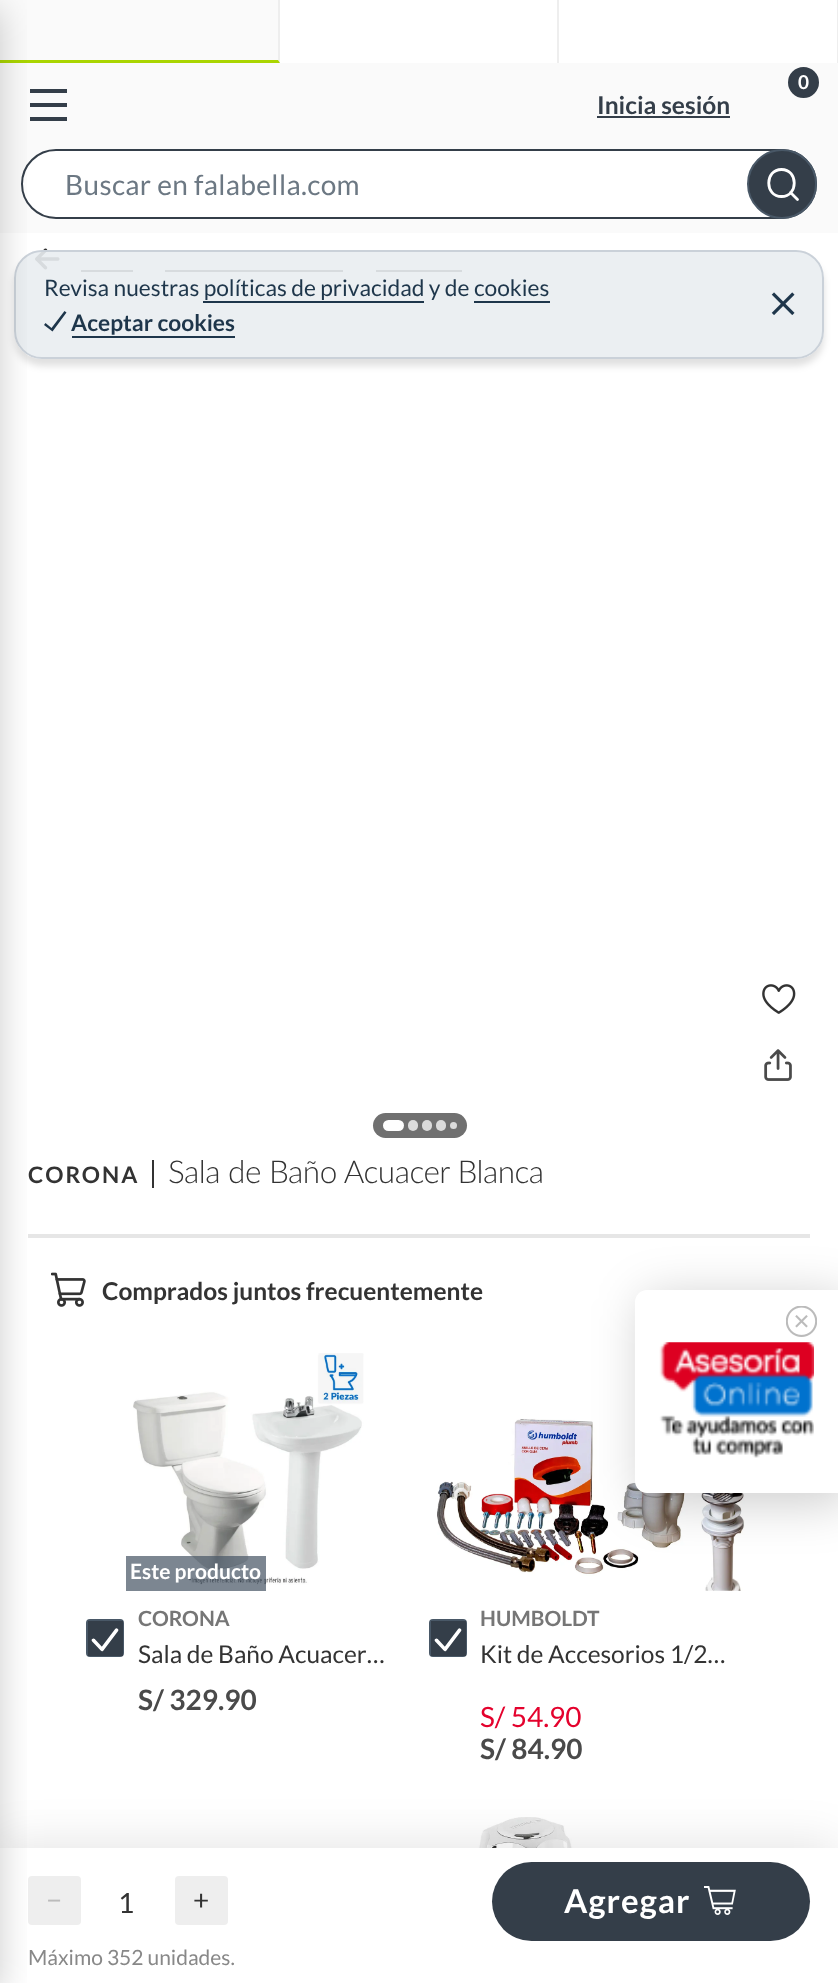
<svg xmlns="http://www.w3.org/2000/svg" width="838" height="1983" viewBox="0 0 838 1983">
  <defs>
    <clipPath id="clip1"><path d="M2 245H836V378H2ZM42 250H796C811.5 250 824 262.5 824 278V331C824 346.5 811.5 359 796 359H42C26.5 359 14 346.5 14 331V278C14 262.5 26.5 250 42 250Z" clip-rule="evenodd"/></clipPath>
    <filter id="blur1" x="-50%" y="-200%" width="200%" height="500%"><feGaussianBlur stdDeviation="3.5"/></filter>
    <filter id="blur2" x="-50%" y="-200%" width="200%" height="500%"><feGaussianBlur stdDeviation="23"/></filter>
    <filter id="blur3" x="-50%" y="-200%" width="200%" height="500%"><feGaussianBlur stdDeviation="17.5"/></filter>
    <filter id="blur4" x="-50%" y="-200%" width="200%" height="500%"><feGaussianBlur stdDeviation="24.5"/></filter>
  </defs>
  <rect width="100%" height="100%" fill="#ffffff"/>
  <rect x="0" y="0" width="280" height="63" fill="#fafafa"/>
  <path d="M280 0V63L278 60V0Z" fill="#eeeeee"/>
  <path d="M280 63H0V60H278Z" fill="#aad500"/>
  <rect x="557" y="0" width="2" height="63" fill="#eeeeee"/>
  <rect x="837" y="0" width="1" height="63" fill="#eeeeee"/>
  <rect x="0" y="63" width="838" height="170" fill="#fafafa"/>
  <rect x="30" y="103" width="37" height="4" fill="#343e49"/>
  <rect x="30" y="89" width="37" height="4" fill="#343e49"/>
  <rect x="30" y="117" width="37" height="4" fill="#343e49"/>
  <rect x="22" y="150" width="794" height="68" rx="34" fill="#ffffff" stroke="#343e49" stroke-width="2"/>
  <image x="35" y="248" width="25" height="22" href="img2.png"/>
  <rect x="81" y="270" width="52" height="2" fill="#333333"/>
  <rect x="165" y="270" width="178" height="2" fill="#333333"/>
  <rect x="376" y="270" width="86" height="2" fill="#333333"/>
  <g clip-path="url(#clip1)">
    <rect x="14" y="257" width="810" height="109" rx="28" fill="#000000" fill-opacity="0.12" filter="url(#blur1)"/>
  </g>
  <rect x="15" y="251" width="808" height="107" rx="27" fill="#e9edf1" fill-opacity="0.9" stroke="#cad1d9" stroke-width="2"/>
  <path d="M51.5 328L64.5 311L66.5 312.5L52.5 331.5L44 325L45.5 323Z" fill="#1e364b"/>
  <rect x="28" y="1234" width="782" height="4" fill="#e6e6e6"/>
  <image x="51" y="1272" width="35" height="35" href="img5.png"/>
  <image x="474" y="1817" width="231" height="31" href="img9.png"/>
  <rect x="0" y="1843" width="838" height="136" fill="#000000" fill-opacity="0.1" filter="url(#blur2)"/>
  <rect x="0" y="1848" width="838" height="135" fill="#ffffff"/>
  <rect x="28" y="1876" width="53" height="49" rx="4" fill="#eeeeee"/>
  <rect x="-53" y="9" width="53" height="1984" fill="#000000" fill-opacity="0.2" filter="url(#blur3)"/>
  <circle cx="803.5" cy="82.5" r="14.5" fill="#343e49" stroke="#343e49" stroke-width="2"/>
  <text x="798" y="89" font-family="Lato" font-size="19" font-weight="bold" fill="#ffffff">0</text>
  <text x="597" y="114" font-family="Lato" font-size="24.5" font-weight="bold" fill="#343e49">Inicia sesión</text>
  <rect x="597" y="116" width="133" height="2" fill="#343e49"/>
  <text x="65" y="195" font-family="Lato" font-size="28" letter-spacing="0.35" fill="#6c7883">Buscar en falabella.com</text>
  <circle cx="782" cy="184" r="34" fill="#343e49" stroke="#495867" stroke-width="2"/>
  <path d="M781.5 196.5C798.5 196.5 798.5 169.5 781.5 169.5C764.5 169.5 764.5 196.5 781.5 196.5ZM797.5 199.5L790.5 192.5" fill="none" stroke="#ffffff" stroke-width="2.8" stroke-linecap="round" stroke-linejoin="round"/>
  <text x="44" y="296" font-family="Lato" font-size="22.75" fill="#1e364b">Revisa nuestras políticas de privacidad y de cookies</text>
  <rect x="203" y="301" width="221" height="2" fill="#1e364b"/>
  <rect x="474" y="301" width="76" height="2" fill="#1e364b"/>
  <text x="71" y="331" font-family="Lato" font-size="22.75" font-weight="bold" fill="#1e364b">Aceptar cookies</text>
  <rect x="72" y="336" width="163" height="2" fill="#1e364b"/>
  <image x="771" y="292" width="24" height="23" href="img1.png"/>
  <image x="762" y="984" width="34" height="30" href="img3.png"/>
  <image x="764" y="1049" width="28" height="32" href="img4.png"/>
  <rect x="373" y="1113" width="94" height="25" rx="12.5" fill="#707070"/>
  <rect x="383" y="1120" width="21" height="11" rx="5.5" fill="#fefefe"/>
  <rect x="408" y="1120" width="10" height="11" rx="5" fill="#dbdbdb"/>
  <rect x="422" y="1120" width="10" height="11" rx="5" fill="#dbdbdb"/>
  <rect x="436" y="1120" width="10" height="11" rx="5" fill="#dbdbdb"/>
  <circle cx="453.5" cy="1125.5" r="3.5" fill="#dbdbdb"/>
  <text x="28" y="1183" font-family="Lato" font-size="22.75" font-weight="bold" letter-spacing="2" fill="#333333">CORONA</text>
  <rect x="152" y="1160" width="2" height="28" fill="#333333"/>
  <text x="168" y="1183" font-family="Lato" font-size="31.5" font-weight="300" letter-spacing="-0.5" fill="#333333">Sala de Baño Acuacer Blanca</text>
  <text x="102" y="1300" font-family="Lato" font-size="24.5" font-weight="bold" fill="#333333">Comprados juntos frecuentemente</text>
  <image x="133" y="1353" width="231" height="232" href="img6.png"/>
  <rect x="126" y="1556" width="140" height="35" fill="#495867" fill-opacity="0.72"/>
  <text x="130" y="1579" font-family="Lato" font-size="21" font-weight="bold" fill="#ffffff">Este producto</text>
  <rect x="87" y="1620" width="36" height="36" rx="3" fill="none" stroke="#495867" stroke-width="2"/>
  <rect x="88" y="1621" width="35" height="35" fill="#343e49"/>
  <image x="91" y="1628" width="28" height="24" href="img7.png"/>
  <text x="138" y="1626" font-family="Lato" font-size="21" font-weight="bold" fill="#767676">CORONA</text>
  <text x="138" y="1663" font-family="Lato" font-size="24.5" fill="#333333">Sala de Baño Acuacer…</text>
  <text x="138" y="1710" font-family="Lato" font-size="28" font-weight="bold" fill="#4a4a4a">S/ 329.90</text>
  <image x="437" y="1352" width="308" height="239" href="img8.png"/>
  <rect x="430" y="1620" width="36" height="36" rx="3" fill="none" stroke="#495867" stroke-width="2"/>
  <rect x="431" y="1621" width="35" height="35" fill="#343e49"/>
  <image x="434" y="1628" width="28" height="24" href="img7.png"/>
  <text x="480" y="1626" font-family="Lato" font-size="21" font-weight="bold" fill="#767676">HUMBOLDT</text>
  <text x="480" y="1663" font-family="Lato" font-size="24.5" fill="#333333">Kit de Accesorios 1/2…</text>
  <text x="480" y="1727" font-family="Lato" font-size="28" fill="#e4022d">S/ 54.90</text>
  <text x="480" y="1759" font-family="Lato" font-size="28" font-weight="bold" fill="#4a4a4a">S/ 84.90</text>
  <text x="46" y="1910" font-family="Lato" font-size="28" fill="#bbbbbb">−</text>
  <text x="118" y="1913" font-family="Lato" font-size="28" fill="#333333">1</text>
  <rect x="175" y="1876" width="53" height="49" rx="4" fill="#eeeeee"/>
  <text x="193" y="1910" font-family="Lato" font-size="28" fill="#333333">+</text>
  <text x="28" y="1965" font-family="Lato" font-size="21" fill="#888888">Máximo 352 unidades.</text>
  <rect x="492" y="1862" width="318" height="79" rx="39.5" fill="#343e49"/>
  <text x="564" y="1913" font-family="Lato" font-size="33" font-weight="bold" letter-spacing="1" fill="#ffffff">Agregar</text>
  <image x="704" y="1886" width="32" height="29" href="img10.png"/>
  <rect x="642" y="1297" width="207" height="206" rx="14" fill="#000000" fill-opacity="0.2" filter="url(#blur4)"/>
  <path d="M647 1290H838V1493H647C640.5 1493 635 1487.5 635 1481V1302C635 1295.5 640.5 1290 647 1290Z" fill="#ffffff"/>
  <image x="659" y="1342" width="155" height="116" href="img11.png"/>
  <image x="786" y="1306" width="31" height="31" href="img12.png"/>
</svg>
